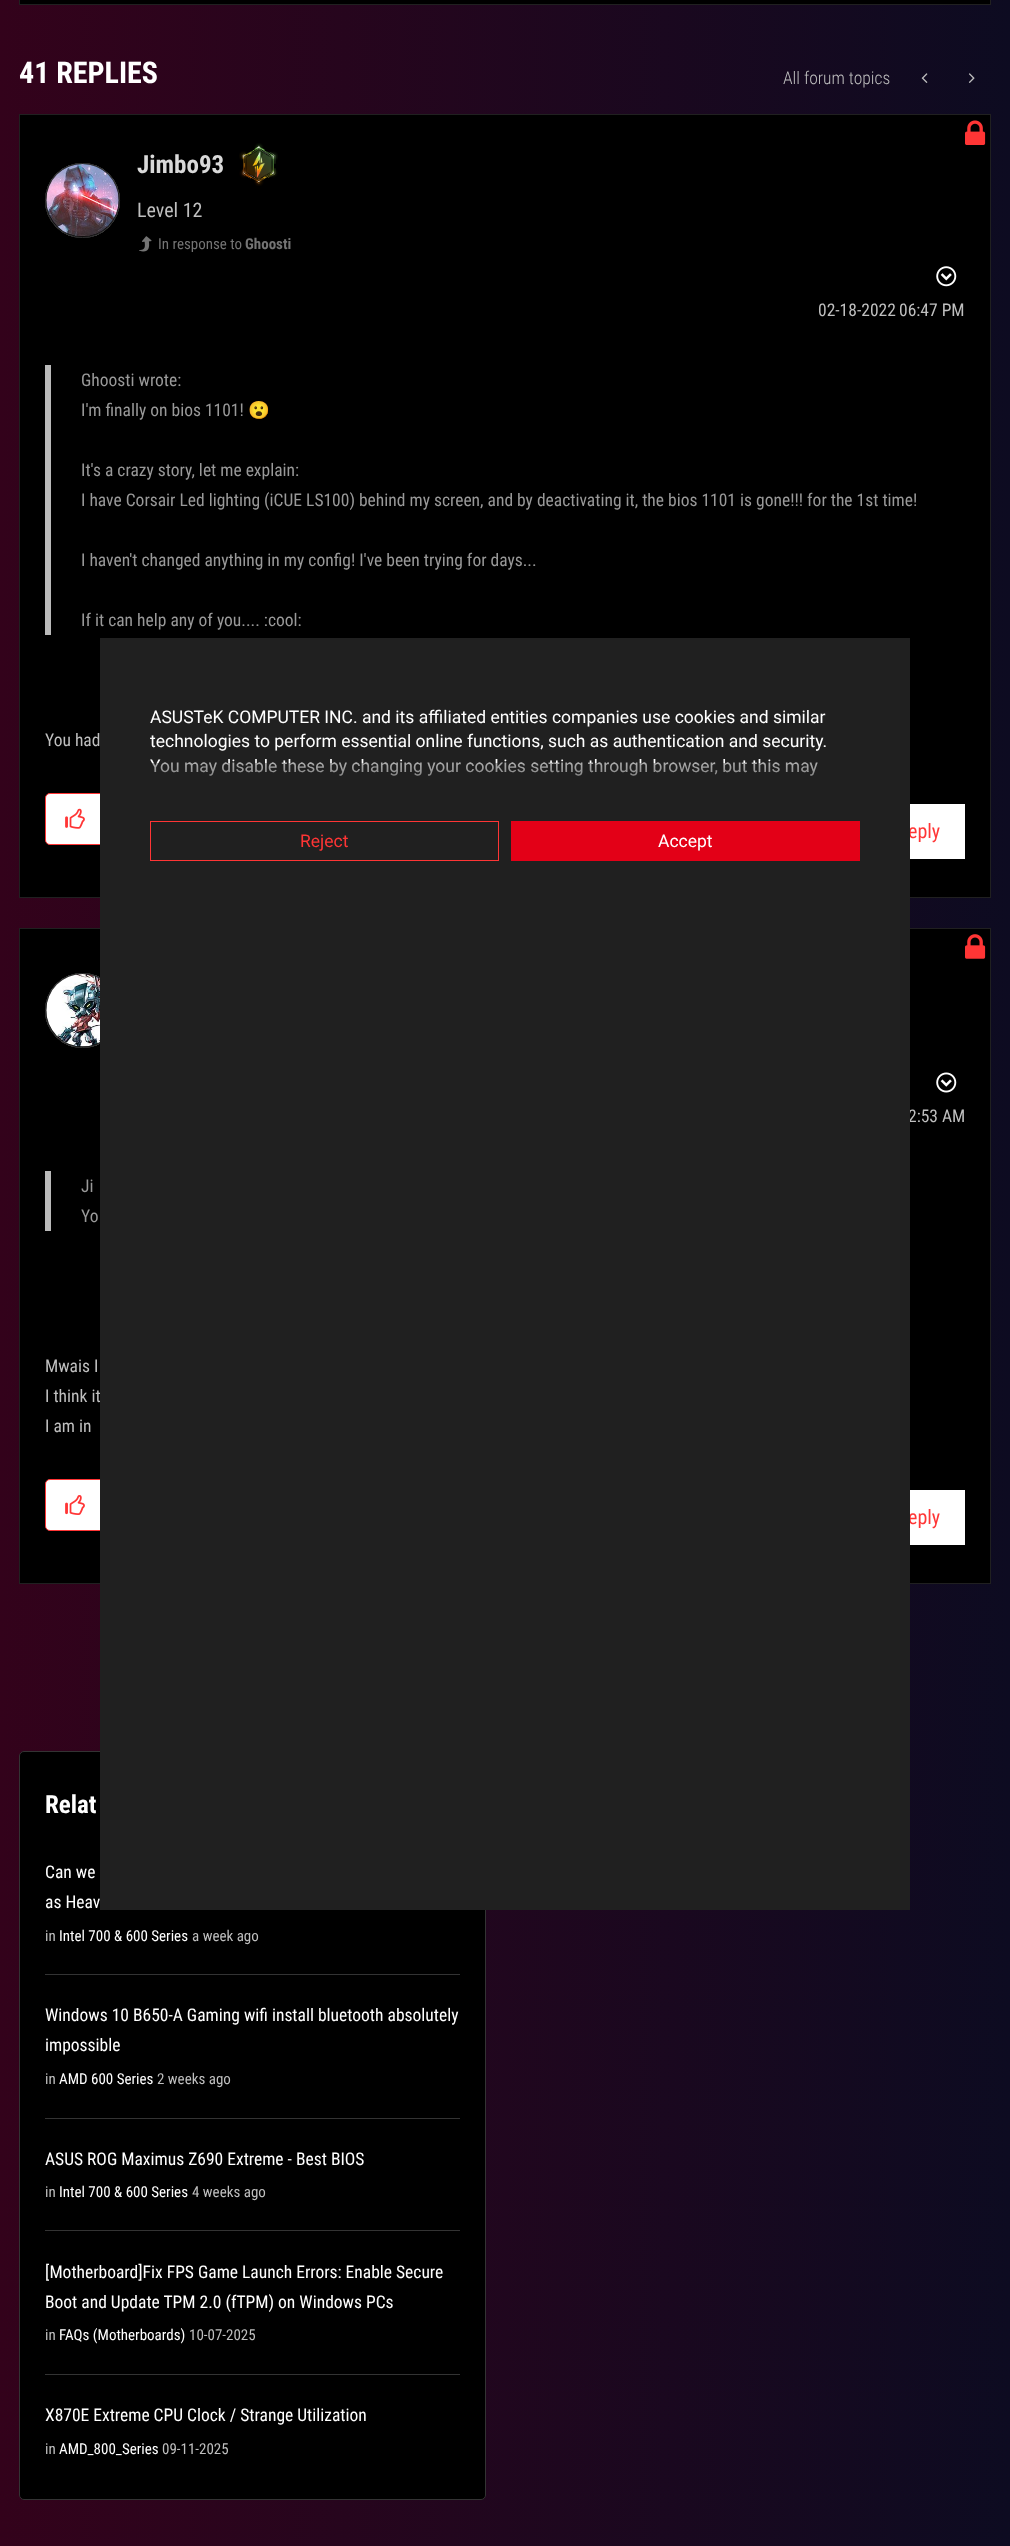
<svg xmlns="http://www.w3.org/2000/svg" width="1010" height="2546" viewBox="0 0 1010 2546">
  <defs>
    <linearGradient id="g1" gradientUnits="userSpaceOnUse" x1="0" y1="800" x2="1010" y2="800"><stop offset="0" stop-color="#33021b"/><stop offset="1" stop-color="#0d0b21"/></linearGradient>
    <clipPath id="clip1"><path d="M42 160H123V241H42ZM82.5 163C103 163 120 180 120 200.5C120 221 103 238 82.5 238C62 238 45 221 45 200.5C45 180 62 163 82.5 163Z" clip-rule="evenodd"/></clipPath>
    <filter id="blur1" x="-50%" y="-200%" width="200%" height="500%"><feGaussianBlur stdDeviation="0.5"/></filter>
    <clipPath id="clip2"><rect x="873" y="804" width="92" height="55"/></clipPath>
    <clipPath id="clip3"><path d="M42 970H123V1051H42ZM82.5 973C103 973 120 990 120 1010.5C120 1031 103 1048 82.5 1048C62 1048 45 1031 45 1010.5C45 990 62 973 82.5 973Z" clip-rule="evenodd"/></clipPath>
    <clipPath id="clip4"><rect x="873" y="1490" width="92" height="55"/></clipPath>
    <linearGradient id="g2" gradientUnits="userSpaceOnUse" x1="505" y1="762" x2="505" y2="811"><stop offset="0" stop-color="#202020" stop-opacity="0.36"/><stop offset="1" stop-color="#202020"/></linearGradient>
  </defs>
  <rect width="100%" height="100%" fill="#ffffff"/>
  <rect x="0" y="0" width="1010" height="2546" fill="url(#g1)"/>
  <rect x="19.5" y="-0.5" width="971" height="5" fill="#000000" stroke="#202020"/>
  <text x="19" y="83" font-family="Roboto Condensed" font-size="30" font-weight="bold" fill="#ffffff">41 REPLIES</text>
  <text x="783" y="84" font-family="Roboto Condensed" font-size="17.5" font-weight="300" fill="#bfbfbf">All forum topics</text>
  <image x="921" y="73" width="7" height="10" href="img1.png"/>
  <image x="968" y="73" width="7" height="10" href="img2.png"/>
  <rect x="19.5" y="114.5" width="971" height="783" fill="#000000" stroke="#202020"/>
  <image x="965" y="120" width="21" height="25" href="img3.png"/>
  <g clip-path="url(#clip1)">
    <rect x="45" y="163" width="75" height="75" rx="37.5" fill="#c4c4c4" filter="url(#blur1)"/>
  </g>
  <circle cx="82.5" cy="200.5" r="37" fill="none" stroke="#333333"/>
  <image x="46" y="164" width="73" height="73" href="img4.png"/>
  <text x="137" y="173" font-family="Roboto Condensed" font-size="25" font-weight="bold" fill="#d9d9d9">Jimbo93</text>
  <image x="239" y="143" width="39" height="43" href="img5.png"/>
  <text x="137" y="217" font-family="Roboto Condensed" font-size="20" fill="#bfbfbf">Level 12</text>
  <image x="139" y="236" width="13" height="16" href="img6.png"/>
  <text x="158" y="249" font-family="Roboto Condensed" font-size="15" fill="#747474">In response to</text>
  <text x="245" y="249" font-family="Roboto Condensed" font-size="15" font-weight="bold" fill="#747474">Ghoosti</text>
  <image x="936" y="266" width="21" height="21" href="img7.png"/>
  <text x="818" y="316" font-family="Roboto Condensed" font-size="17.5" fill="#bfbfbf">02-18-2022</text>
  <text x="899" y="316" font-family="Roboto Condensed" font-size="17.5" fill="#bfbfbf">06:47 PM</text>
  <rect x="45" y="365" width="6" height="270" fill="#bababa"/>
  <text x="81" y="386" font-family="Roboto Condensed" font-size="17.5" fill="#999999">Ghoosti wrote:</text>
  <text x="81" y="416" font-family="Roboto Condensed" font-size="17.5" fill="#999999">I'm finally on bios 1101!</text>
  <text x="248" y="416" font-family="Noto Color Emoji" font-size="17.5" fill="#999999">😮</text>
  <text x="81" y="476" font-family="Roboto Condensed" font-size="17.5" fill="#999999">It's a crazy story, let me explain:</text>
  <text x="81" y="506" font-family="Roboto Condensed" font-size="17.5" fill="#999999">I have Corsair Led lighting (iCUE LS100) behind my screen, and by deactivating it, the bios 1101 is gone!!! for the 1st time!</text>
  <text x="81" y="566" font-family="Roboto Condensed" font-size="17.5" fill="#999999">I haven't changed anything in my config! I've been trying for days...</text>
  <text x="81" y="626" font-family="Roboto Condensed" font-size="17.5" fill="#999999">If it can help any of you.... :cool:</text>
  <text x="45" y="746" font-family="Roboto Condensed" font-size="17.5" fill="#bfbfbf">You had</text>
  <rect x="45.5" y="793.5" width="157" height="51" rx="4.5" fill="#ffffff" stroke="#ff3535"/>
  <image x="65" y="808" width="20" height="21" href="img8.png"/>
  <g clip-path="url(#clip2)">
    <path d="M872 804V845L886 859H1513V804Z" fill="#ffffff"/>
  </g>
  <text x="908" y="838" font-family="Roboto Condensed" font-size="20" fill="#ff3535">eply</text>
  <rect x="19.5" y="928.5" width="971" height="655" fill="#000000" stroke="#202020"/>
  <image x="965" y="934" width="21" height="25" href="img9.png"/>
  <g clip-path="url(#clip3)">
    <rect x="45" y="973" width="75" height="75" rx="37.5" fill="#c4c4c4" filter="url(#blur1)"/>
  </g>
  <circle cx="82.5" cy="1010.5" r="37" fill="none" stroke="#333333"/>
  <image x="46" y="974" width="54" height="73" href="img10.png"/>
  <image x="936" y="1072" width="21" height="21" href="img11.png"/>
  <text x="908" y="1122" font-family="Roboto Condensed" font-size="17.5" fill="#bfbfbf">2:53 AM</text>
  <rect x="45" y="1171" width="6" height="60" fill="#bababa"/>
  <text x="81" y="1192" font-family="Roboto Condensed" font-size="17.5" fill="#999999">Ji</text>
  <text x="81" y="1222" font-family="Roboto Condensed" font-size="17.5" fill="#999999">Yo</text>
  <text x="45" y="1372" font-family="Roboto Condensed" font-size="17.5" fill="#bfbfbf">Mwais I</text>
  <text x="45" y="1402" font-family="Roboto Condensed" font-size="17.5" fill="#bfbfbf">I think it</text>
  <text x="45" y="1432" font-family="Roboto Condensed" font-size="17.5" fill="#bfbfbf">I am in</text>
  <rect x="45.5" y="1479.5" width="157" height="51" rx="4.5" fill="#ffffff" stroke="#ff3535"/>
  <image x="65" y="1495" width="20" height="20" href="img12.png"/>
  <g clip-path="url(#clip4)">
    <path d="M872 1490V1531L886 1545H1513V1490Z" fill="#ffffff"/>
  </g>
  <text x="908" y="1524" font-family="Roboto Condensed" font-size="20" fill="#ff3535">eply</text>
  <rect x="19.5" y="1751.5" width="466" height="748" rx="4.5" fill="#000000" stroke="#333333"/>
  <text x="45" y="1813" font-family="Roboto Condensed" font-size="25" font-weight="bold" fill="#ffffff">Relat</text>
  <rect x="45" y="1974" width="415" height="1" fill="#333333"/>
  <text x="45" y="1878" font-family="Roboto Condensed" font-size="17.5" fill="#ffffff">Can we</text>
  <text x="45" y="1908" font-family="Roboto Condensed" font-size="17.5" fill="#ffffff">as Heav</text>
  <text x="45" y="1941" font-family="Roboto Condensed" font-size="15" fill="#bfbfbf">in</text>
  <text x="59" y="1941" font-family="Roboto Condensed" font-size="15" fill="#ffffff">Intel 700 &amp; 600 Series</text>
  <text x="192" y="1941" font-family="Roboto Condensed" font-size="15" fill="#bfbfbf">a week ago</text>
  <rect x="45" y="2118" width="415" height="1" fill="#333333"/>
  <text x="45" y="2021" font-family="Roboto Condensed" font-size="17.5" fill="#ffffff">Windows 10 B650-A Gaming wifi install bluetooth absolutely</text>
  <text x="45" y="2051" font-family="Roboto Condensed" font-size="17.5" fill="#ffffff">impossible</text>
  <text x="45" y="2084" font-family="Roboto Condensed" font-size="15" fill="#bfbfbf">in</text>
  <text x="59" y="2084" font-family="Roboto Condensed" font-size="15" fill="#ffffff">AMD 600 Series</text>
  <text x="157" y="2084" font-family="Roboto Condensed" font-size="15" fill="#bfbfbf">2 weeks ago</text>
  <rect x="45" y="2230" width="415" height="1" fill="#333333"/>
  <text x="45" y="2165" font-family="Roboto Condensed" font-size="17.5" fill="#ffffff">ASUS ROG Maximus Z690 Extreme - Best BIOS</text>
  <text x="45" y="2197" font-family="Roboto Condensed" font-size="15" fill="#bfbfbf">in</text>
  <text x="59" y="2197" font-family="Roboto Condensed" font-size="15" fill="#ffffff">Intel 700 &amp; 600 Series</text>
  <text x="192" y="2197" font-family="Roboto Condensed" font-size="15" fill="#bfbfbf">4 weeks ago</text>
  <rect x="45" y="2374" width="415" height="1" fill="#333333"/>
  <text x="45" y="2278" font-family="Roboto Condensed" font-size="17.5" fill="#ffffff">[Motherboard]Fix FPS Game Launch Errors: Enable Secure</text>
  <text x="45" y="2308" font-family="Roboto Condensed" font-size="17.5" fill="#ffffff">Boot and Update TPM 2.0 (fTPM) on Windows PCs</text>
  <text x="45" y="2340" font-family="Roboto Condensed" font-size="15" fill="#bfbfbf">in</text>
  <text x="59" y="2340" font-family="Roboto Condensed" font-size="15" fill="#ffffff">FAQs (Motherboards)</text>
  <text x="189" y="2340" font-family="Roboto Condensed" font-size="15" fill="#bfbfbf">10-07-2025</text>
  <text x="45" y="2421" font-family="Roboto Condensed" font-size="17.5" fill="#ffffff">X870E Extreme CPU Clock / Strange Utilization</text>
  <text x="45" y="2454" font-family="Roboto Condensed" font-size="15" fill="#bfbfbf">in</text>
  <text x="59" y="2454" font-family="Roboto Condensed" font-size="15" fill="#ffffff">AMD_800_Series</text>
  <text x="162" y="2454" font-family="Roboto Condensed" font-size="15" fill="#bfbfbf">09-11-2025</text>
  <rect x="100" y="638" width="810" height="1272" fill="#202020"/>
  <text x="150" y="723" font-family="Roboto" font-size="17.5" fill="#ffffff">ASUSTeK COMPUTER INC. and its affiliated entities companies use cookies and similar</text>
  <text x="150" y="747" font-family="Roboto" font-size="17.5" fill="#ffffff">technologies to perform essential online functions, such as authentication and security.</text>
  <text x="150" y="772" font-family="Roboto" font-size="17.5" fill="#ffffff">You may disable these by changing your cookies setting through browser, but this may</text>
  <rect x="152" y="763" width="666" height="13" fill="url(#g2)"/>
  <rect x="150.5" y="821.5" width="348" height="39" fill="none" stroke="#ff3535"/>
  <text x="300" y="847" font-family="Roboto" font-size="17.5" fill="#ff3535">Reject</text>
  <rect x="511" y="821" width="349" height="40" fill="#e30017"/>
  <text x="658" y="847" font-family="Roboto" font-size="17.5" fill="#ffffff">Accept</text>
</svg>
